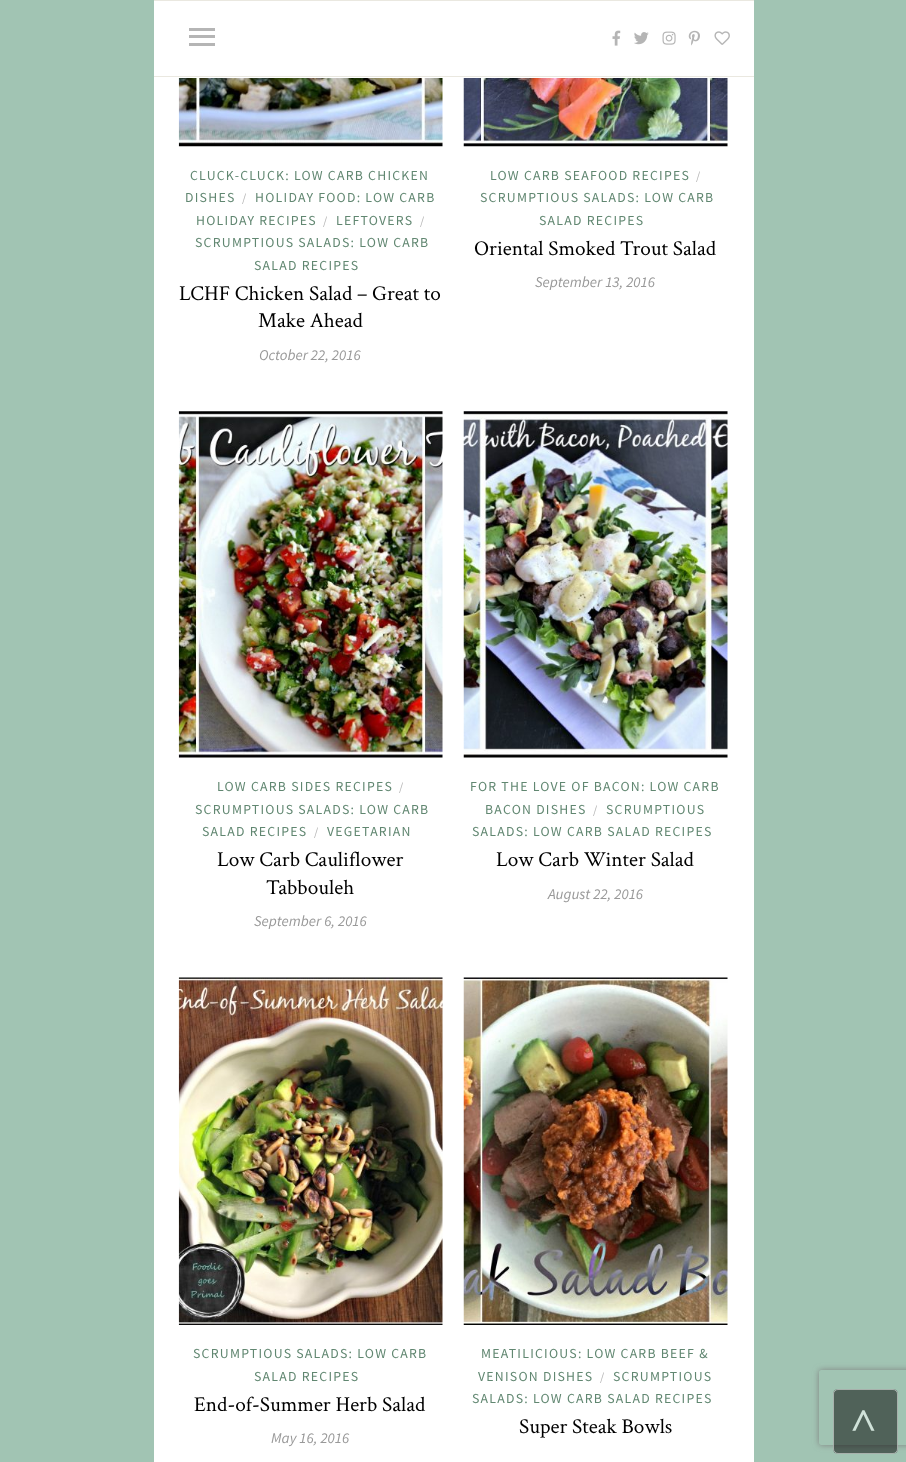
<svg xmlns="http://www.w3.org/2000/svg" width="906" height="1462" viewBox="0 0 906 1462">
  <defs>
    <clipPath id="clip1"><path d="M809 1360H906V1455H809ZM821.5 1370H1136.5C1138 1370 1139 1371 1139 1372.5V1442.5C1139 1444 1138 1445 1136.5 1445H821.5C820 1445 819 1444 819 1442.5V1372.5C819 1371 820 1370 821.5 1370Z" clip-rule="evenodd"/></clipPath>
    <filter id="blur1" x="-50%" y="-200%" width="200%" height="500%"><feGaussianBlur stdDeviation="3"/></filter>
  </defs>
  <rect width="100%" height="100%" fill="#a1c4b3"/>
  <rect x="154" y="1" width="600" height="1461" fill="#ffffff"/>
  <rect x="154" y="0" width="600" height="1" fill="#eae8e0"/>
  <rect x="154" y="76" width="600" height="1" fill="#eae8e0"/>
  <rect x="189" y="28" width="26" height="3" fill="#b5b5b5"/>
  <rect x="189" y="35" width="26" height="3" fill="#b5b5b5"/>
  <rect x="189" y="43" width="26" height="3" fill="#b5b5b5"/>
  <image x="612" y="30" width="9" height="16" href="img1.png"/>
  <image x="634" y="32" width="15" height="13" href="img2.png"/>
  <image x="662" y="31" width="14" height="14" href="img3.png"/>
  <image x="688" y="30" width="12" height="16" href="img4.png"/>
  <image x="714" y="31" width="16" height="14" href="img5.png"/>
  <image x="178" y="78" width="265" height="69" href="img6.png"/>
  <text x="190" y="180" font-family="Source Sans Pro" font-size="13.75" letter-spacing="1.25" fill="#618771">CLUCK-CLUCK: LOW CARB CHICKEN</text>
  <text x="185" y="202" font-family="Source Sans Pro" font-size="13.75" letter-spacing="1.25" fill="#618771">DISHES</text>
  <text x="242" y="202" font-family="Source Sans Pro" font-size="12" fill="#b5b5b5">/</text>
  <text x="255" y="202" font-family="Source Sans Pro" font-size="13.75" letter-spacing="1.25" fill="#618771">HOLIDAY FOOD: LOW CARB</text>
  <text x="196" y="225" font-family="Source Sans Pro" font-size="13.75" letter-spacing="1.25" fill="#618771">HOLIDAY RECIPES</text>
  <text x="323" y="225" font-family="Source Sans Pro" font-size="12" fill="#b5b5b5">/</text>
  <text x="336" y="225" font-family="Source Sans Pro" font-size="13.75" letter-spacing="1.25" fill="#618771">LEFTOVERS</text>
  <text x="420" y="225" font-family="Source Sans Pro" font-size="12" fill="#b5b5b5">/</text>
  <text x="195" y="247" font-family="Source Sans Pro" font-size="13.75" letter-spacing="1.25" fill="#618771">SCRUMPTIOUS SALADS: LOW CARB</text>
  <text x="254" y="270" font-family="Source Sans Pro" font-size="13.75" letter-spacing="1.25" fill="#618771">SALAD RECIPES</text>
  <text x="179" y="300" font-family="Crimson Text" font-size="21.25" fill="#000000">LCHF Chicken Salad – Great to</text>
  <text x="258" y="327" font-family="Crimson Text" font-size="21.25" fill="#000000">Make Ahead</text>
  <text x="259" y="360" font-family="Source Sans Pro" font-size="15" font-style="italic" fill="#999999">October 22, 2016</text>
  <image x="463" y="78" width="265" height="69" href="img7.png"/>
  <text x="490" y="180" font-family="Source Sans Pro" font-size="13.75" letter-spacing="1.25" fill="#618771">LOW CARB SEAFOOD RECIPES</text>
  <text x="696" y="180" font-family="Source Sans Pro" font-size="12" fill="#b5b5b5">/</text>
  <text x="480" y="202" font-family="Source Sans Pro" font-size="13.75" letter-spacing="1.25" fill="#618771">SCRUMPTIOUS SALADS: LOW CARB</text>
  <text x="539" y="225" font-family="Source Sans Pro" font-size="13.75" letter-spacing="1.25" fill="#618771">SALAD RECIPES</text>
  <text x="474" y="255" font-family="Crimson Text" font-size="21.25" fill="#000000">Oriental Smoked Trout Salad</text>
  <text x="535" y="287" font-family="Source Sans Pro" font-size="15" font-style="italic" fill="#999999">September 13, 2016</text>
  <image x="178" y="411" width="265" height="347" href="img8.png"/>
  <text x="217" y="791" font-family="Source Sans Pro" font-size="13.75" letter-spacing="1.25" fill="#618771">LOW CARB SIDES RECIPES</text>
  <text x="399" y="791" font-family="Source Sans Pro" font-size="12" fill="#b5b5b5">/</text>
  <text x="195" y="814" font-family="Source Sans Pro" font-size="13.75" letter-spacing="1.25" fill="#618771">SCRUMPTIOUS SALADS: LOW CARB</text>
  <text x="202" y="836" font-family="Source Sans Pro" font-size="13.75" letter-spacing="1.25" fill="#618771">SALAD RECIPES</text>
  <text x="314" y="836" font-family="Source Sans Pro" font-size="12" fill="#b5b5b5">/</text>
  <text x="327" y="836" font-family="Source Sans Pro" font-size="13.75" letter-spacing="1.25" fill="#618771">VEGETARIAN</text>
  <text x="217" y="866" font-family="Crimson Text" font-size="21.25" fill="#000000">Low Carb Cauliflower</text>
  <text x="266" y="894" font-family="Crimson Text" font-size="21.25" fill="#000000">Tabbouleh</text>
  <text x="254" y="926" font-family="Source Sans Pro" font-size="15" font-style="italic" fill="#999999">September 6, 2016</text>
  <image x="463" y="411" width="265" height="347" href="img9.png"/>
  <text x="470" y="791" font-family="Source Sans Pro" font-size="13.75" letter-spacing="1.25" fill="#618771">FOR THE LOVE OF BACON: LOW CARB</text>
  <text x="485" y="814" font-family="Source Sans Pro" font-size="13.75" letter-spacing="1.25" fill="#618771">BACON DISHES</text>
  <text x="593" y="814" font-family="Source Sans Pro" font-size="12" fill="#b5b5b5">/</text>
  <text x="606" y="814" font-family="Source Sans Pro" font-size="13.75" letter-spacing="1.25" fill="#618771">SCRUMPTIOUS</text>
  <text x="472" y="836" font-family="Source Sans Pro" font-size="13.75" letter-spacing="1.25" fill="#618771">SALADS: LOW CARB SALAD RECIPES</text>
  <text x="496" y="866" font-family="Crimson Text" font-size="21.25" fill="#000000">Low Carb Winter Salad</text>
  <text x="548" y="899" font-family="Source Sans Pro" font-size="15" font-style="italic" fill="#999999">August 22, 2016</text>
  <image x="178" y="977" width="265" height="348" href="img10.png"/>
  <text x="193" y="1358" font-family="Source Sans Pro" font-size="13.75" letter-spacing="1.25" fill="#618771">SCRUMPTIOUS SALADS: LOW CARB</text>
  <text x="254" y="1381" font-family="Source Sans Pro" font-size="13.75" letter-spacing="1.25" fill="#618771">SALAD RECIPES</text>
  <text x="194" y="1411" font-family="Crimson Text" font-size="21.25" fill="#000000">End-of-Summer Herb Salad</text>
  <text x="271" y="1443" font-family="Source Sans Pro" font-size="15" font-style="italic" fill="#999999">May 16, 2016</text>
  <image x="463" y="977" width="265" height="348" href="img11.png"/>
  <text x="481" y="1358" font-family="Source Sans Pro" font-size="13.75" letter-spacing="1.25" fill="#618771">MEATILICIOUS: LOW CARB BEEF &amp;</text>
  <text x="478" y="1381" font-family="Source Sans Pro" font-size="13.75" letter-spacing="1.25" fill="#618771">VENISON DISHES</text>
  <text x="600" y="1381" font-family="Source Sans Pro" font-size="12" fill="#b5b5b5">/</text>
  <text x="613" y="1381" font-family="Source Sans Pro" font-size="13.75" letter-spacing="1.25" fill="#618771">SCRUMPTIOUS</text>
  <text x="472" y="1403" font-family="Source Sans Pro" font-size="13.75" letter-spacing="1.25" fill="#618771">SALADS: LOW CARB SALAD RECIPES</text>
  <text x="519" y="1433" font-family="Crimson Text" font-size="21.25" fill="#000000">Super Steak Bowls</text>
  <g clip-path="url(#clip1)">
    <rect x="819" y="1370" width="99" height="75" rx="2.5" fill="#808080" filter="url(#blur1)"/>
  </g>
  <rect x="833" y="1389" width="65" height="65" rx="5" fill="#000000" fill-opacity="0.5"/>
  <rect x="833.5" y="1389.5" width="64" height="64" rx="4.5" fill="none" stroke="#ffffff" stroke-opacity="0.5"/>
  <text x="851" y="1435" font-family="Liberation Serif" font-size="44" font-weight="bold" fill="#d0e2d9">˄</text>
</svg>
